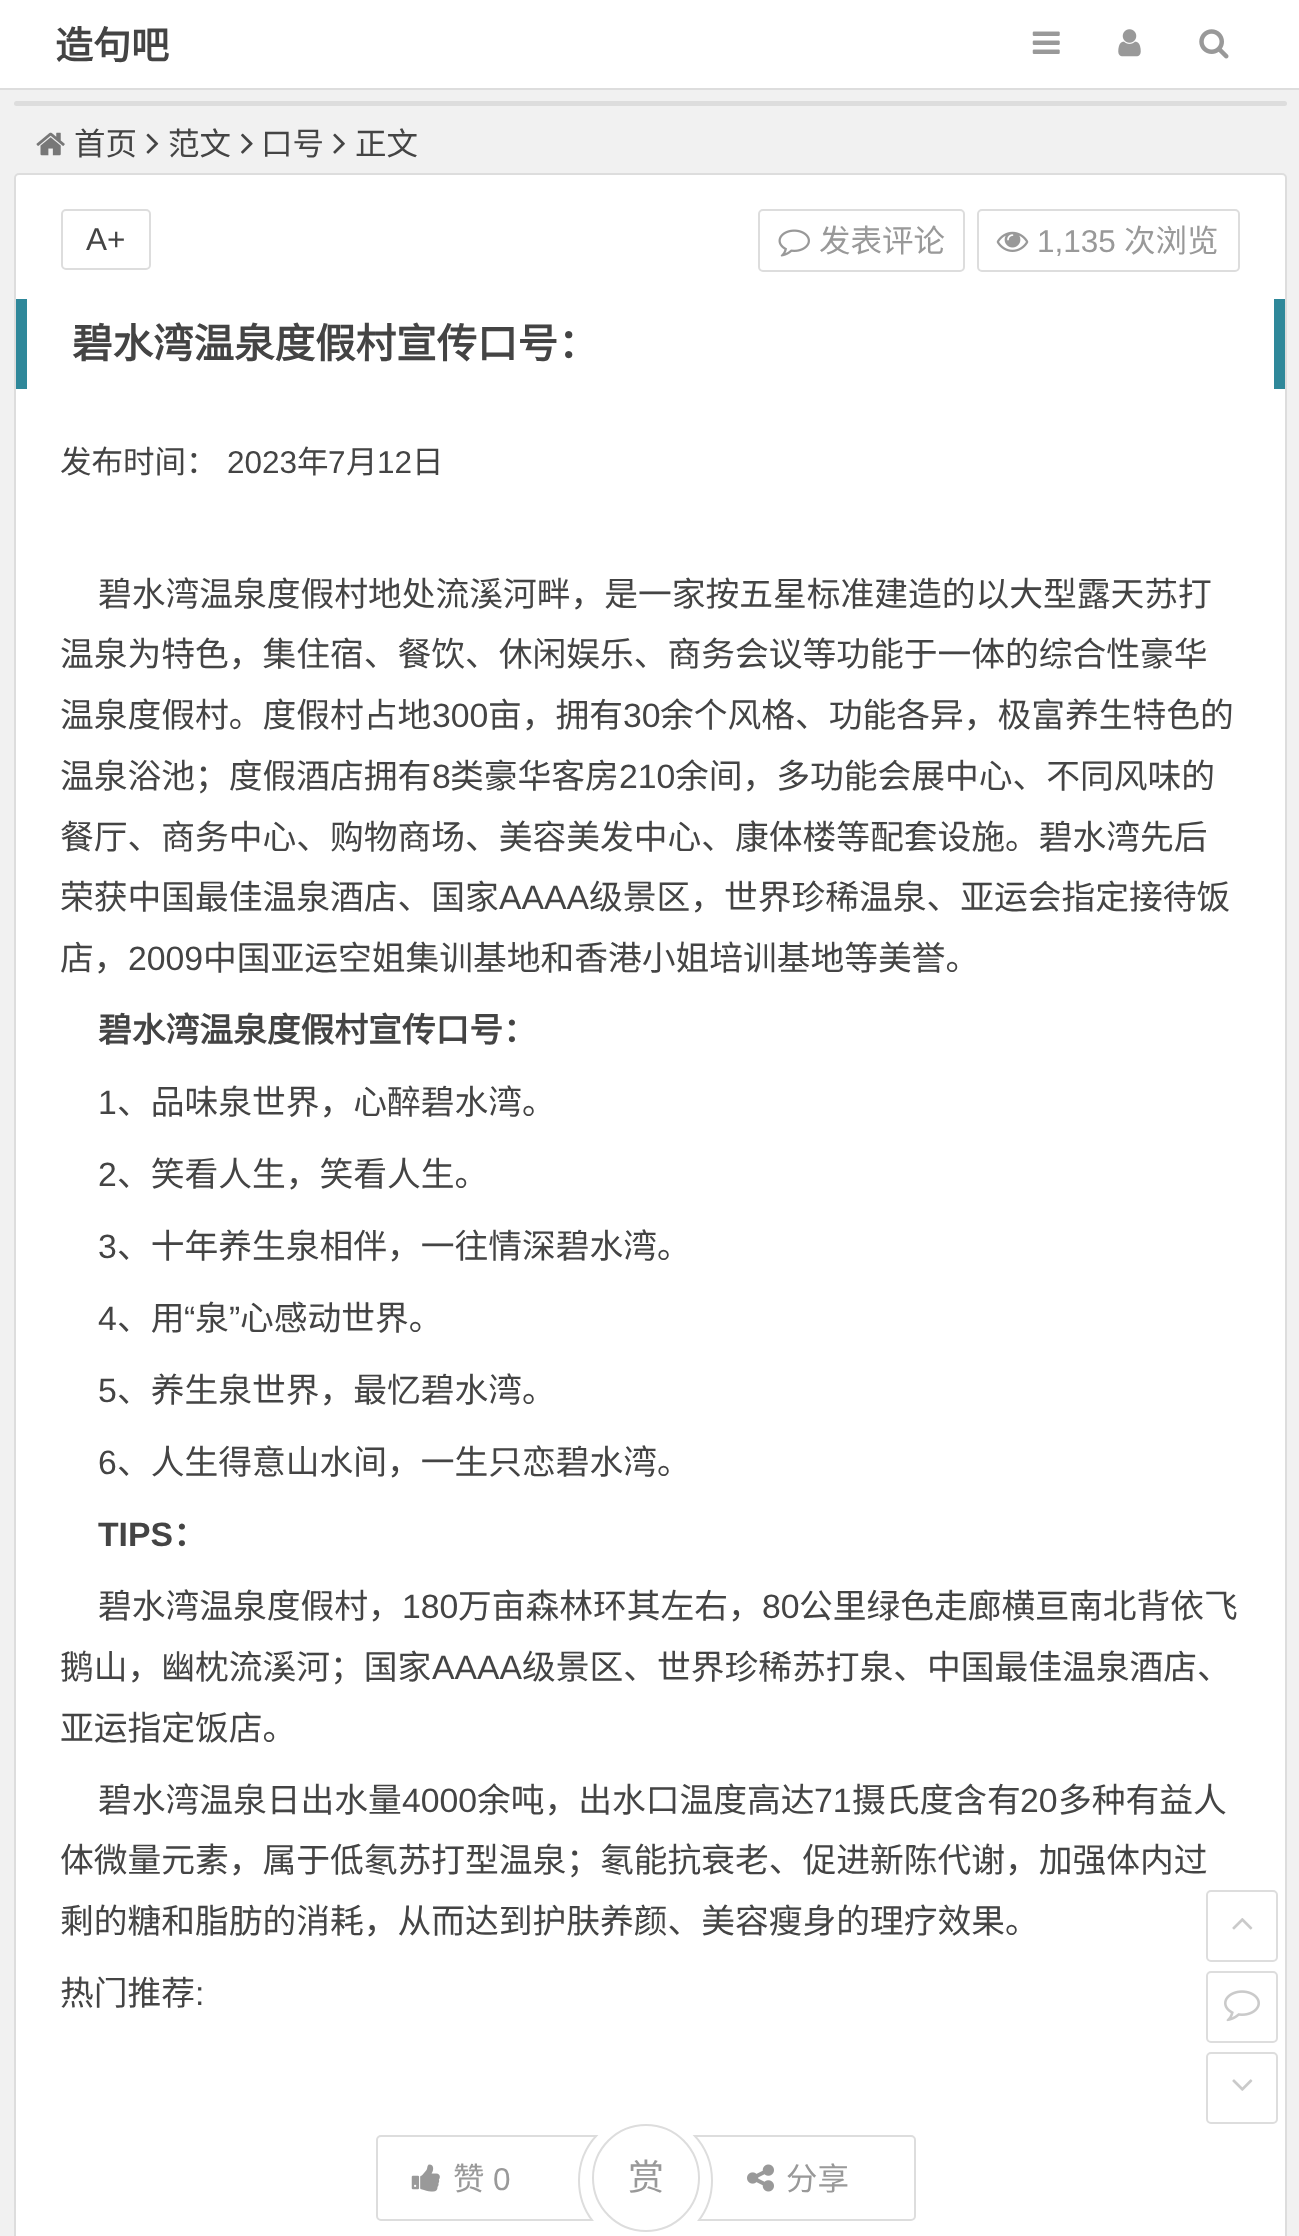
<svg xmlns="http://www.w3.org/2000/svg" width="1299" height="2236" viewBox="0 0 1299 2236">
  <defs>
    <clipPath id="clip1"><rect x="578" y="2135" width="140" height="86"/></clipPath>
  </defs>
  <rect width="100%" height="100%" fill="#f1f1f1"/>
  <rect x="0" y="0" width="1299" height="88" fill="#ffffff"/>
  <rect x="0" y="88" width="1299" height="2" fill="#dddddd"/>
  <text x="55" y="59" font-family="Noto Sans CJK SC" font-size="38" font-weight="bold" fill="#444444">造句吧</text>
  <image x="1032" y="31" width="28" height="23" href="img1.png"/>
  <image x="1118" y="29" width="23" height="28" href="img2.png"/>
  <image x="1199" y="29" width="30" height="30" href="img3.png"/>
  <rect x="14" y="101" width="1273" height="5" rx="2.5" fill="#dddddd"/>
  <image x="36" y="132" width="29" height="24" href="img4.png"/>
  <text x="74" y="155" font-family="Noto Sans CJK SC" font-size="31.5" fill="#444444">首页</text>
  <image x="146" y="133" width="13" height="21" href="img5.png"/>
  <text x="168" y="155" font-family="Noto Sans CJK SC" font-size="31.5" fill="#444444">范文</text>
  <image x="241" y="133" width="12" height="21" href="img6.png"/>
  <text x="261" y="155" font-family="Noto Sans CJK SC" font-size="31.5" fill="#444444">口号</text>
  <image x="333" y="133" width="12" height="21" href="img7.png"/>
  <text x="355" y="155" font-family="Noto Sans CJK SC" font-size="31.5" fill="#444444">正文</text>
  <rect x="15" y="174" width="1271" height="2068" rx="4" fill="#ffffff" stroke="#dddddd" stroke-width="2"/>
  <rect x="62" y="210" width="88" height="59" rx="4" fill="none" stroke="#dddddd" stroke-width="2"/>
  <text x="86" y="250" font-family="Liberation Sans" font-size="31.5" fill="#444444">A+</text>
  <rect x="759" y="210" width="205" height="61" rx="4" fill="none" stroke="#dddddd" stroke-width="2"/>
  <image x="778" y="229" width="32" height="28" href="img8.png"/>
  <text x="819" y="252" font-family="Noto Sans CJK SC" font-size="31.5" fill="#999999">发表评论</text>
  <rect x="978" y="210" width="261" height="61" rx="4" fill="none" stroke="#dddddd" stroke-width="2"/>
  <image x="996" y="231" width="33" height="21" href="img9.png"/>
  <text x="1037" y="252" font-family="Liberation Sans" font-size="31.5" fill="#999999">1,135</text>
  <text x="1124" y="252" font-family="Noto Sans CJK SC" font-size="31.5" fill="#999999">次浏览</text>
  <text x="98" y="606" font-family="Noto Sans CJK SC" font-size="33.75" fill="#444444">碧水湾温泉度假村地处流溪河畔，是一家按五星标准建造的以大型露天苏打</text>
  <text x="60" y="666" font-family="Noto Sans CJK SC" font-size="33.75" fill="#444444">温泉为特色，集住宿、餐饮、休闲娱乐、商务会议等功能于一体的综合性豪华</text>
  <text x="60" y="727" font-family="Noto Sans CJK SC" font-size="33.75" fill="#444444">温泉度假村。度假村占地</text>
  <text x="432" y="727" font-family="Liberation Sans" font-size="33.75" fill="#444444">300</text>
  <text x="488" y="727" font-family="Noto Sans CJK SC" font-size="33.75" fill="#444444">亩，拥有</text>
  <text x="623" y="727" font-family="Liberation Sans" font-size="33.75" fill="#444444">30</text>
  <text x="660" y="727" font-family="Noto Sans CJK SC" font-size="33.75" fill="#444444">余个风格、功能各异，极富养生特色的</text>
  <text x="60" y="788" font-family="Noto Sans CJK SC" font-size="33.75" fill="#444444">温泉浴池；度假酒店拥有</text>
  <text x="432" y="788" font-family="Liberation Sans" font-size="33.75" fill="#444444">8</text>
  <text x="450" y="788" font-family="Noto Sans CJK SC" font-size="33.75" fill="#444444">类豪华客房</text>
  <text x="619" y="788" font-family="Liberation Sans" font-size="33.75" fill="#444444">210</text>
  <text x="675" y="788" font-family="Noto Sans CJK SC" font-size="33.75" fill="#444444">余间，多功能会展中心、不同风味的</text>
  <text x="60" y="849" font-family="Noto Sans CJK SC" font-size="33.75" fill="#444444">餐厅、商务中心、购物商场、美容美发中心、康体楼等配套设施。碧水湾先后</text>
  <text x="60" y="909" font-family="Noto Sans CJK SC" font-size="33.75" fill="#444444">荣获中国最佳温泉酒店、国家</text>
  <text x="499" y="909" font-family="Liberation Sans" font-size="33.75" fill="#444444">AAAA</text>
  <text x="589" y="909" font-family="Noto Sans CJK SC" font-size="33.75" fill="#444444">级景区，世界珍稀温泉、亚运会指定接待饭</text>
  <text x="60" y="970" font-family="Noto Sans CJK SC" font-size="33.75" fill="#444444">店，</text>
  <text x="128" y="970" font-family="Liberation Sans" font-size="33.75" fill="#444444">2009</text>
  <text x="203" y="970" font-family="Noto Sans CJK SC" font-size="33.75" fill="#444444">中国亚运空姐集训基地和香港小姐培训基地等美誉。</text>
  <text x="98" y="1042" font-family="Noto Sans CJK SC" font-size="33.75" font-weight="bold" fill="#444444">碧水湾温泉度假村宣传口号：</text>
  <text x="98" y="1114" font-family="Liberation Sans" font-size="33.75" fill="#444444">1</text>
  <text x="117" y="1114" font-family="Noto Sans CJK SC" font-size="33.75" fill="#444444">、品味泉世界，心醉碧水湾。</text>
  <text x="98" y="1186" font-family="Liberation Sans" font-size="33.75" fill="#444444">2</text>
  <text x="117" y="1186" font-family="Noto Sans CJK SC" font-size="33.75" fill="#444444">、笑看人生，笑看人生。</text>
  <text x="98" y="1258" font-family="Liberation Sans" font-size="33.75" fill="#444444">3</text>
  <text x="117" y="1258" font-family="Noto Sans CJK SC" font-size="33.75" fill="#444444">、十年养生泉相伴，一往情深碧水湾。</text>
  <text x="98" y="1330" font-family="Liberation Sans" font-size="33.75" fill="#444444">4</text>
  <text x="117" y="1330" font-family="Noto Sans CJK SC" font-size="33.75" fill="#444444">、用</text>
  <text x="184" y="1330" font-family="Liberation Sans" font-size="33.75" fill="#444444">“</text>
  <text x="195" y="1330" font-family="Noto Sans CJK SC" font-size="33.75" fill="#444444">泉</text>
  <text x="229" y="1330" font-family="Liberation Sans" font-size="33.75" fill="#444444">”</text>
  <text x="240" y="1330" font-family="Noto Sans CJK SC" font-size="33.75" fill="#444444">心感动世界。</text>
  <text x="98" y="1402" font-family="Liberation Sans" font-size="33.75" fill="#444444">5</text>
  <text x="117" y="1402" font-family="Noto Sans CJK SC" font-size="33.75" fill="#444444">、养生泉世界，最忆碧水湾。</text>
  <text x="98" y="1474" font-family="Liberation Sans" font-size="33.75" fill="#444444">6</text>
  <text x="117" y="1474" font-family="Noto Sans CJK SC" font-size="33.75" fill="#444444">、人生得意山水间，一生只恋碧水湾。</text>
  <text x="98" y="1546" font-family="Liberation Sans" font-size="33.75" font-weight="bold" fill="#444444">TIPS</text>
  <text x="173" y="1546" font-family="Noto Sans CJK SC" font-size="33.75" font-weight="bold" fill="#444444">：</text>
  <text x="98" y="1618" font-family="Noto Sans CJK SC" font-size="33.75" fill="#444444">碧水湾温泉度假村，</text>
  <text x="402" y="1618" font-family="Liberation Sans" font-size="33.75" fill="#444444">180</text>
  <text x="458" y="1618" font-family="Noto Sans CJK SC" font-size="33.75" fill="#444444">万亩森林环其左右，</text>
  <text x="762" y="1618" font-family="Liberation Sans" font-size="33.75" fill="#444444">80</text>
  <text x="799" y="1618" font-family="Noto Sans CJK SC" font-size="33.75" fill="#444444">公里绿色走廊横亘南北背依飞</text>
  <text x="60" y="1679" font-family="Noto Sans CJK SC" font-size="33.75" fill="#444444">鹅山，幽枕流溪河；国家</text>
  <text x="432" y="1679" font-family="Liberation Sans" font-size="33.75" fill="#444444">AAAA</text>
  <text x="522" y="1679" font-family="Noto Sans CJK SC" font-size="33.75" fill="#444444">级景区、世界珍稀苏打泉、中国最佳温泉酒店、</text>
  <text x="60" y="1740" font-family="Noto Sans CJK SC" font-size="33.75" fill="#444444">亚运指定饭店。</text>
  <text x="98" y="1812" font-family="Noto Sans CJK SC" font-size="33.75" fill="#444444">碧水湾温泉日出水量</text>
  <text x="402" y="1812" font-family="Liberation Sans" font-size="33.75" fill="#444444">4000</text>
  <text x="477" y="1812" font-family="Noto Sans CJK SC" font-size="33.75" fill="#444444">余吨，出水口温度高达</text>
  <text x="814" y="1812" font-family="Liberation Sans" font-size="33.75" fill="#444444">71</text>
  <text x="852" y="1812" font-family="Noto Sans CJK SC" font-size="33.75" fill="#444444">摄氏度含有</text>
  <text x="1020" y="1812" font-family="Liberation Sans" font-size="33.75" fill="#444444">20</text>
  <text x="1058" y="1812" font-family="Noto Sans CJK SC" font-size="33.75" fill="#444444">多种有益人</text>
  <text x="60" y="1872" font-family="Noto Sans CJK SC" font-size="33.75" fill="#444444">体微量元素，属于低氡苏打型温泉；氡能抗衰老、促进新陈代谢，加强体内过</text>
  <text x="60" y="1933" font-family="Noto Sans CJK SC" font-size="33.75" fill="#444444">剩的糖和脂肪的消耗，从而达到护肤养颜、美容瘦身的理疗效果。</text>
  <text x="60" y="2005" font-family="Noto Sans CJK SC" font-size="33.75" fill="#444444">热门推荐</text>
  <text x="195" y="2005" font-family="Liberation Sans" font-size="33.75" fill="#444444">:</text>
  <rect x="377" y="2136" width="268" height="84" rx="4" fill="none" stroke="#dddddd" stroke-width="2"/>
  <image x="411" y="2164" width="29" height="28" href="img10.png"/>
  <text x="453" y="2190" font-family="Noto Sans CJK SC" font-size="31.5" fill="#999999">赞</text>
  <text x="493" y="2190" font-family="Liberation Sans" font-size="31.5" fill="#999999">0</text>
  <rect x="647" y="2136" width="268" height="84" rx="4" fill="none" stroke="#dddddd" stroke-width="2"/>
  <g clip-path="url(#clip1)">
    <circle cx="645.5" cy="2180.5" r="66.5" fill="#ffffff" stroke="#dddddd" stroke-width="2"/>
  </g>
  <circle cx="646" cy="2178" r="53" fill="none" stroke="#dddddd" stroke-width="2"/>
  <text x="628" y="2190" font-family="Noto Sans CJK SC" font-size="36" fill="#999999">赏</text>
  <image x="747" y="2164" width="27" height="28" href="img11.png"/>
  <text x="786" y="2190" font-family="Noto Sans CJK SC" font-size="31.5" fill="#999999">分享</text>
  <rect x="1274" y="299" width="11" height="90" fill="#2f889a"/>
  <rect x="16" y="299" width="11" height="90" fill="#2f889a"/>
  <text x="72" y="358" font-family="Noto Sans CJK SC" font-size="40.5" font-weight="bold" fill="#444444">碧水湾温泉度假村宣传口号：</text>
  <text x="60" y="473" font-family="Noto Sans CJK SC" font-size="31.5" fill="#444444">发布时间：</text>
  <text x="227" y="473" font-family="Liberation Sans" font-size="31.5" fill="#444444">2023</text>
  <text x="297" y="473" font-family="Noto Sans CJK SC" font-size="31.5" fill="#444444">年</text>
  <text x="328" y="473" font-family="Liberation Sans" font-size="31.5" fill="#444444">7</text>
  <text x="346" y="473" font-family="Noto Sans CJK SC" font-size="31.5" fill="#444444">月</text>
  <text x="377" y="473" font-family="Liberation Sans" font-size="31.5" fill="#444444">12</text>
  <text x="412" y="473" font-family="Noto Sans CJK SC" font-size="31.5" fill="#444444">日</text>
  <rect x="1207" y="1891" width="70" height="70" rx="4" fill="none" stroke="#dddddd" stroke-width="2"/>
  <image x="1232" y="1918" width="21" height="12" href="img12.png"/>
  <rect x="1207" y="1972" width="70" height="70" rx="4" fill="none" stroke="#dddddd" stroke-width="2"/>
  <image x="1224" y="1990" width="36" height="32" href="img13.png"/>
  <rect x="1207" y="2053" width="70" height="70" rx="4" fill="none" stroke="#dddddd" stroke-width="2"/>
  <image x="1232" y="2079" width="21" height="12" href="img14.png"/>
</svg>
